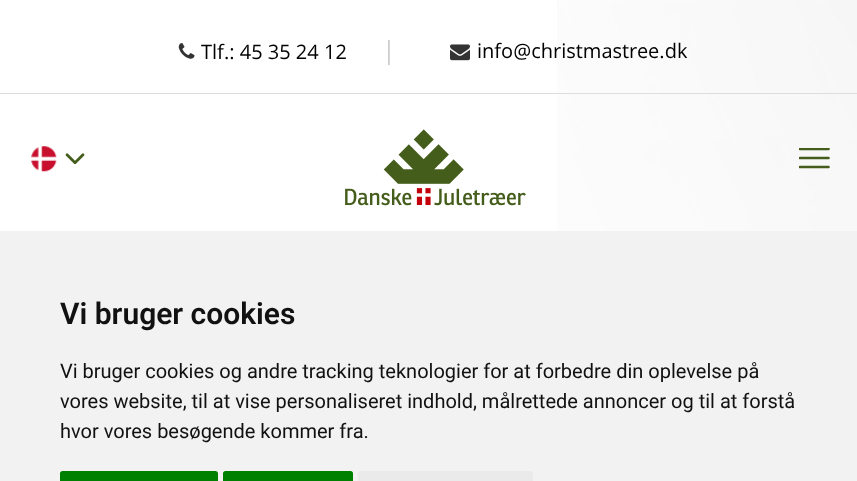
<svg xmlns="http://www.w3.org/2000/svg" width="857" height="481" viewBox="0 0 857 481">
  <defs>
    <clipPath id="clip1"><rect x="799" y="148" width="31" height="21"/></clipPath>
  </defs>
  <rect width="100%" height="100%" fill="#ffffff"/>
  <image x="557" y="0" width="300" height="231" href="img1.png"/>
  <image x="178" y="43" width="17" height="16" href="img2.png"/>
  <text x="201" y="59" font-family="Open Sans" font-size="20" fill="#000000">Tlf.: 45 35 24 12</text>
  <text x="382" y="59" font-family="Open Sans" font-size="25" fill="#cccccc">|</text>
  <image x="450" y="44" width="20" height="17" href="img3.png"/>
  <text x="477" y="58" font-family="Open Sans" font-size="20" fill="#000000">info@christmastree.dk</text>
  <rect x="0" y="93" width="857" height="1" fill="#dddddd"/>
  <image x="31" y="146" width="26" height="26" href="img4.png"/>
  <image x="65" y="153" width="20" height="12" href="img5.png"/>
  <image x="345" y="129" width="181" height="77" href="img6.png"/>
  <g clip-path="url(#clip1)">
    <path d="M800 167H828.5M800 149H828.5M800 158H828.5" fill="none" stroke="#445d1b" stroke-width="2.6" stroke-linecap="round"/>
  </g>
  <rect x="0" y="231" width="857" height="250" fill="#f2f2f2"/>
  <text x="60" y="324" font-family="Roboto" font-size="30" font-weight="600" fill="#111111">Vi bruger cookies</text>
  <text x="60" y="378" font-family="Roboto" font-size="20" fill="#111111">Vi bruger cookies og andre tracking teknologier for at forbedre din oplevelse på</text>
  <text x="60" y="408" font-family="Roboto" font-size="20" fill="#111111">vores website, til at vise personaliseret indhold, målrettede annoncer og til at forstå</text>
  <text x="60" y="438" font-family="Roboto" font-size="20" fill="#111111">hvor vores besøgende kommer fra.</text>
  <path d="M62.5 471H215.5C217 471 218 472 218 473.5V481H60V473.5C60 472 61 471 62.5 471Z" fill="#008000"/>
  <path d="M225.5 471H350.5C352 471 353 472 353 473.5V481H223V473.5C223 472 224 471 225.5 471Z" fill="#008000"/>
  <path d="M360.5 471H530.5C532 471 533 472 533 473.5V481H358V473.5C358 472 359 471 360.5 471Z" fill="#eaeaea"/>
</svg>
